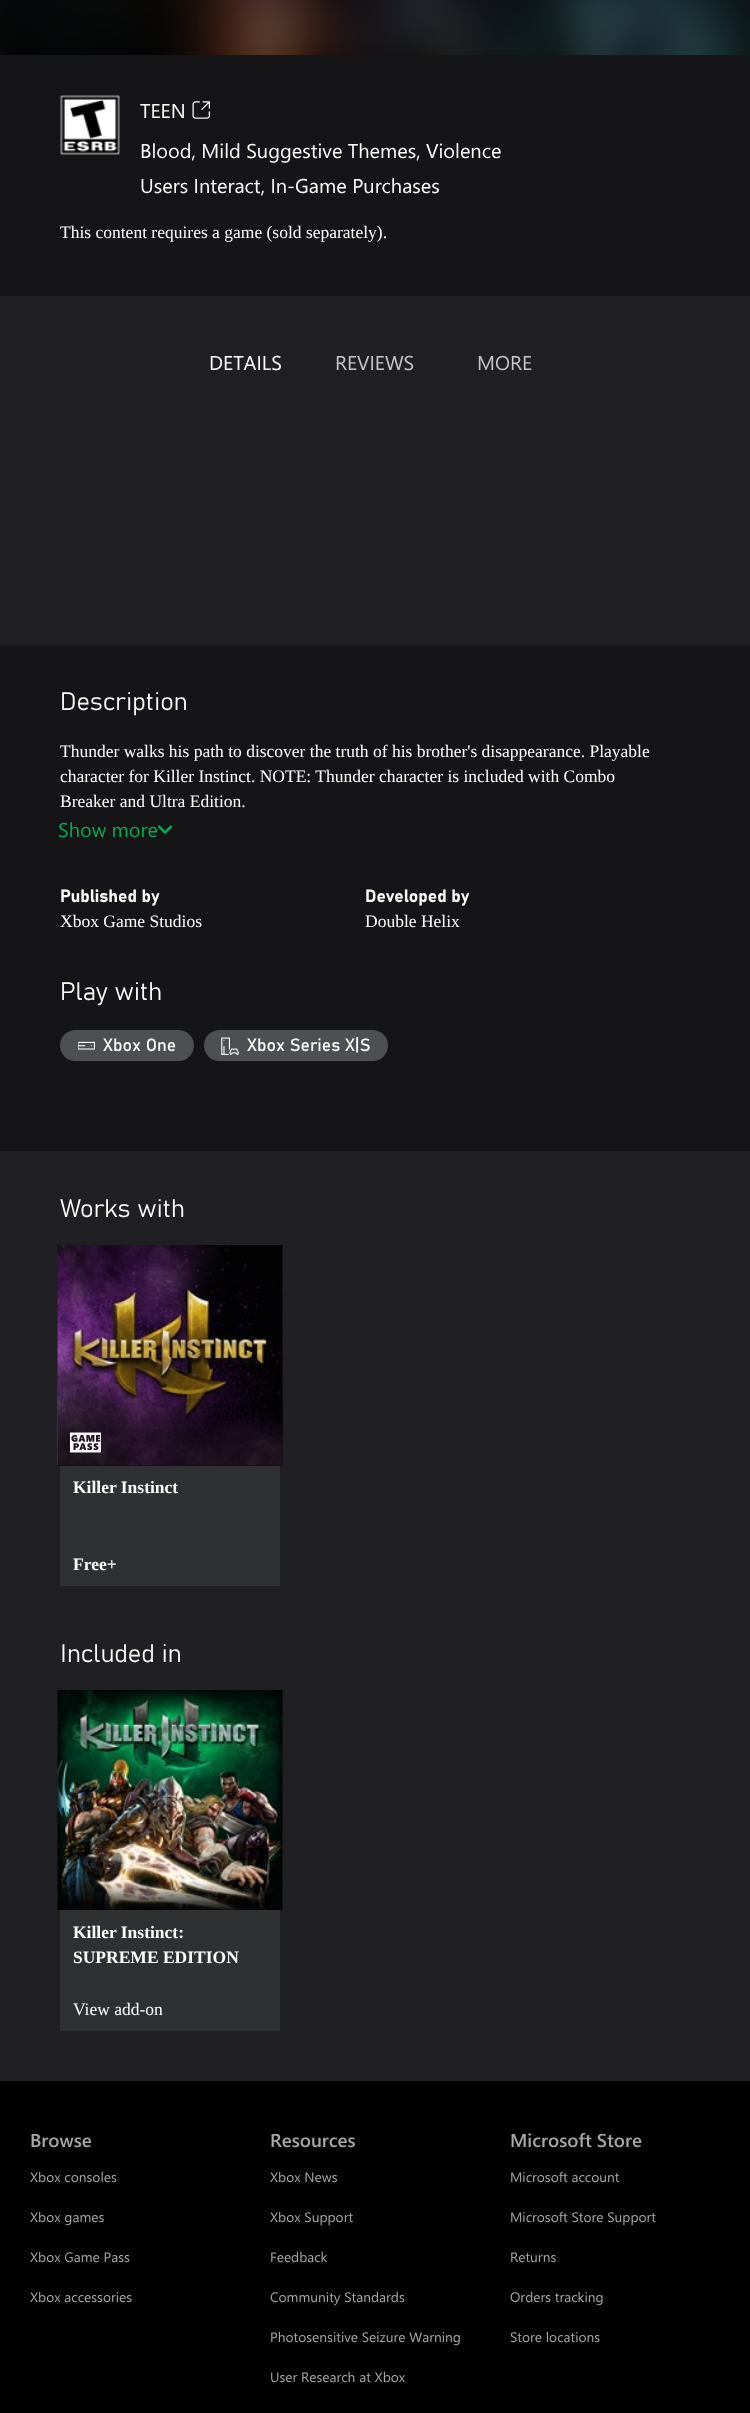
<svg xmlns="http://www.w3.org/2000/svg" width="750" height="2413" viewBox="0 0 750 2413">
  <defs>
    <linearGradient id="g1" gradientUnits="userSpaceOnUse" x1="170" y1="1246" x2="170" y2="1466"><stop offset="0.55" stop-color="#000000" stop-opacity="0"/><stop offset="0.85" stop-color="#000000" stop-opacity="0.6"/></linearGradient>
  </defs>
  <rect width="100%" height="100%" fill="#201f24"/>
  <rect x="0" y="0" width="750" height="55" fill="#0c0b0d"/>
  <image x="0" y="0" width="750" height="55" href="img1.png"/>
  <rect x="0" y="55" width="750" height="241" fill="#151517"/>
  <image x="60" y="95" width="60" height="60" href="img2.png"/>
  <text x="140" y="118" font-family="Segoe UI" font-size="20" fill="#ffffff">TEEN</text>
  <image x="192" y="101" width="18" height="18" href="img3.png"/>
  <text x="140" y="158" font-family="Segoe UI" font-size="20" fill="#ffffff">Blood, Mild Suggestive Themes, Violence</text>
  <text x="140" y="193" font-family="Segoe UI" font-size="20" fill="#ffffff">Users Interact, In-Game Purchases</text>
  <text x="60" y="238" font-family="Liberation Serif" font-size="17.5" fill="#ffffff">This content requires a game (sold separately).</text>
  <text x="209" y="370" font-family="Segoe UI" font-size="20" fill="#ffffff">DETAILS</text>
  <text x="335" y="370" font-family="Segoe UI" font-size="20" fill="#c7c7c8">REVIEWS</text>
  <text x="477" y="370" font-family="Segoe UI" font-size="20" fill="#c7c7c8">MORE</text>
  <rect x="0" y="645" width="750" height="506" fill="#151517"/>
  <text x="60" y="710" font-family="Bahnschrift" font-size="25" font-weight="300" fill="#ffffff">Description</text>
  <text x="60" y="757" font-family="Liberation Serif" font-size="17.5" fill="#ffffff">Thunder walks his path to discover the truth of his brother's disappearance. Playable</text>
  <text x="60" y="782" font-family="Liberation Serif" font-size="17.5" fill="#ffffff">character for Killer Instinct. NOTE: Thunder character is included with Combo</text>
  <text x="60" y="807" font-family="Liberation Serif" font-size="17.5" fill="#ffffff">Breaker and Ultra Edition.</text>
  <text x="58" y="837" font-family="Segoe UI" font-size="20" fill="#04ab4f">Show more</text>
  <image x="158" y="825" width="15" height="10" href="img4.png"/>
  <text x="60" y="902" font-family="Bahnschrift" font-size="17.5" font-weight="bold" fill="#ffffff">Published by</text>
  <text x="60" y="927" font-family="Liberation Serif" font-size="17.5" fill="#ffffff">Xbox Game Studios</text>
  <text x="365" y="902" font-family="Bahnschrift" font-size="17.5" font-weight="bold" fill="#ffffff">Developed by</text>
  <text x="365" y="927" font-family="Liberation Serif" font-size="17.5" fill="#ffffff">Double Helix</text>
  <text x="60" y="1000" font-family="Bahnschrift" font-size="25" font-weight="300" fill="#ffffff">Play with</text>
  <rect x="60" y="1030" width="134" height="31" rx="15.5" fill="#4d4f51"/>
  <image x="78" y="1041" width="17" height="9" href="img5.png"/>
  <text x="103" y="1051" font-family="Bahnschrift" font-size="17.5" fill="#ffffff">Xbox One</text>
  <rect x="204" y="1030" width="184" height="31" rx="15.5" fill="#4d4f51"/>
  <image x="221" y="1037" width="18" height="18" href="img6.png"/>
  <text x="247" y="1051" font-family="Bahnschrift" font-size="17.5" fill="#ffffff">Xbox Series X|S</text>
  <text x="60" y="1217" font-family="Bahnschrift" font-size="25" font-weight="300" fill="#ffffff">Works with</text>
  <rect x="60" y="1465" width="220" height="121" fill="#2f3032"/>
  <image x="57" y="1245" width="226" height="220" href="img7.png"/>
  <rect x="58" y="1369" width="225" height="97" fill="url(#g1)"/>
  <image x="70" y="1432" width="31" height="21" href="img8.png"/>
  <text x="73" y="1493" font-family="Liberation Serif" font-size="17.5" font-weight="bold" fill="#ffffff">Killer Instinct</text>
  <text x="73" y="1570" font-family="Liberation Serif" font-size="17.5" font-weight="bold" fill="#ffffff">Free+</text>
  <text x="60" y="1662" font-family="Bahnschrift" font-size="25" font-weight="300" fill="#ffffff">Included in</text>
  <rect x="60" y="1910" width="220" height="121" fill="#2f3032"/>
  <image x="57" y="1690" width="226" height="220" href="img9.png"/>
  <text x="73" y="1938" font-family="Liberation Serif" font-size="17.5" font-weight="bold" fill="#ffffff">Killer Instinct:</text>
  <text x="73" y="1963" font-family="Liberation Serif" font-size="17.5" font-weight="bold" fill="#ffffff">SUPREME EDITION</text>
  <text x="73" y="2015" font-family="Liberation Serif" font-size="17.5" fill="#ffffff">View add-on</text>
  <rect x="0" y="2081" width="750" height="332" fill="#000000"/>
  <text x="30" y="2147" font-family="Segoe UI" font-size="18.75" font-weight="600" fill="#a7a7a7">Browse</text>
  <text x="30" y="2182" font-family="Segoe UI" font-size="13.75" fill="#a7a7a7">Xbox consoles</text>
  <text x="30" y="2222" font-family="Segoe UI" font-size="13.75" fill="#a7a7a7">Xbox games</text>
  <text x="30" y="2262" font-family="Segoe UI" font-size="13.75" fill="#a7a7a7">Xbox Game Pass</text>
  <text x="30" y="2302" font-family="Segoe UI" font-size="13.75" fill="#a7a7a7">Xbox accessories</text>
  <text x="270" y="2147" font-family="Segoe UI" font-size="18.75" font-weight="600" fill="#a7a7a7">Resources</text>
  <text x="270" y="2182" font-family="Segoe UI" font-size="13.75" fill="#a7a7a7">Xbox News</text>
  <text x="270" y="2222" font-family="Segoe UI" font-size="13.75" fill="#a7a7a7">Xbox Support</text>
  <text x="270" y="2262" font-family="Segoe UI" font-size="13.75" fill="#a7a7a7">Feedback</text>
  <text x="270" y="2302" font-family="Segoe UI" font-size="13.75" fill="#a7a7a7">Community Standards</text>
  <text x="270" y="2342" font-family="Segoe UI" font-size="13.75" fill="#a7a7a7">Photosensitive Seizure Warning</text>
  <text x="270" y="2382" font-family="Segoe UI" font-size="13.75" fill="#a7a7a7">User Research at Xbox</text>
  <text x="510" y="2147" font-family="Segoe UI" font-size="18.75" font-weight="600" fill="#a7a7a7">Microsoft Store</text>
  <text x="510" y="2182" font-family="Segoe UI" font-size="13.75" fill="#a7a7a7">Microsoft account</text>
  <text x="510" y="2222" font-family="Segoe UI" font-size="13.75" fill="#a7a7a7">Microsoft Store Support</text>
  <text x="510" y="2262" font-family="Segoe UI" font-size="13.75" fill="#a7a7a7">Returns</text>
  <text x="510" y="2302" font-family="Segoe UI" font-size="13.75" fill="#a7a7a7">Orders tracking</text>
  <text x="510" y="2342" font-family="Segoe UI" font-size="13.75" fill="#a7a7a7">Store locations</text>
</svg>
